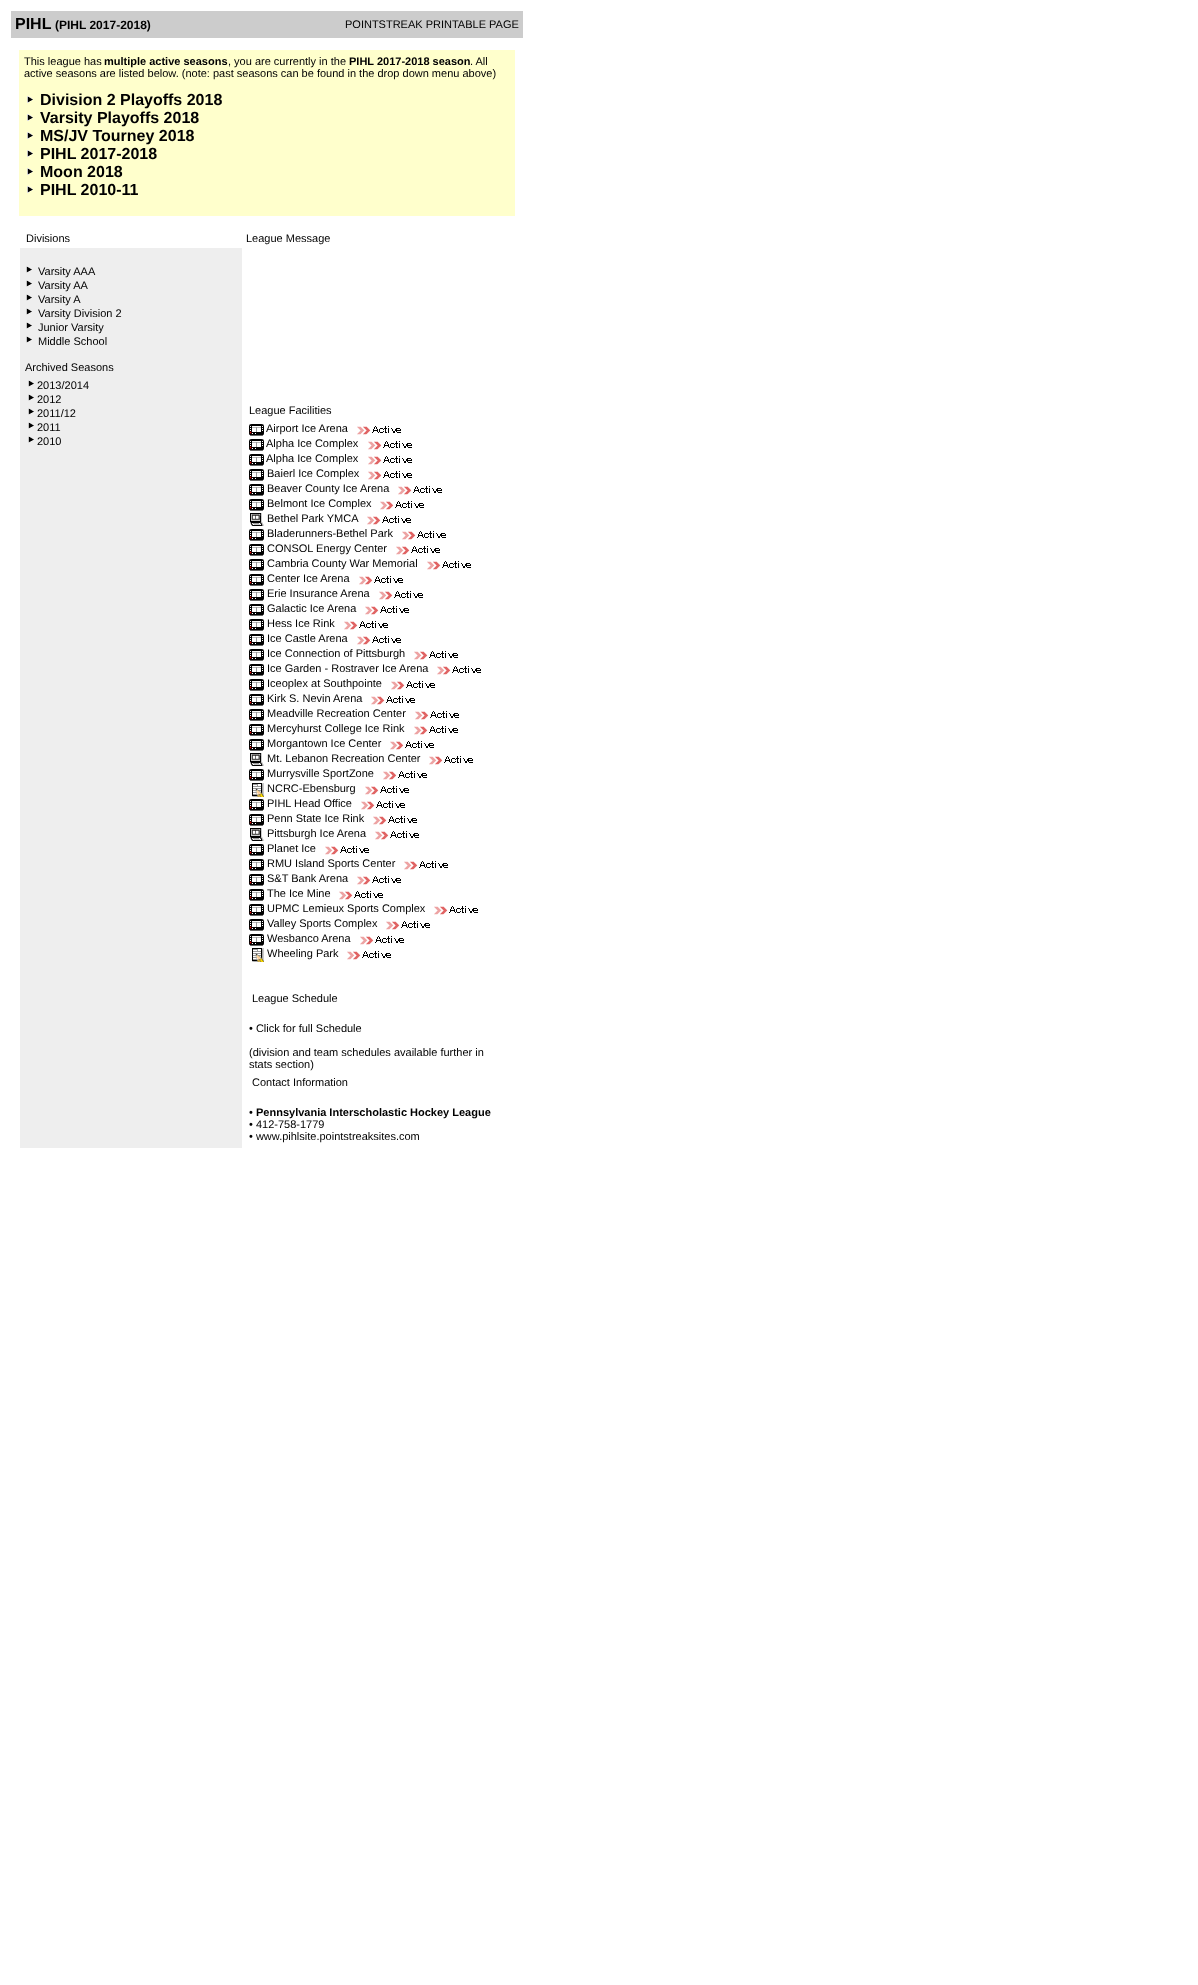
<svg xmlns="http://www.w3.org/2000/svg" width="1198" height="1985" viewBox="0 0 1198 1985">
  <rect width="100%" height="100%" fill="#ffffff"/>
  <rect x="11" y="11" width="512" height="27" fill="#cccccc"/>
  <text x="15" y="29" font-family="Liberation Sans" font-size="16" font-weight="bold" fill="#000000">PIHL</text>
  <text x="55" y="29" font-family="Liberation Sans" font-size="12" font-weight="bold" fill="#000000">(PIHL 2017-2018)</text>
  <text x="345" y="28" font-family="Liberation Sans" font-size="11" fill="#000000">POINTSTREAK PRINTABLE PAGE</text>
  <rect x="19" y="50" width="496" height="166" fill="#ffffcc"/>
  <text x="24" y="65" font-family="Liberation Sans" font-size="11" fill="#000000">This league has</text>
  <text x="104" y="65" font-family="Liberation Sans" font-size="11" font-weight="bold" fill="#000000">multiple active seasons</text>
  <text x="228" y="65" font-family="Liberation Sans" font-size="11" fill="#000000">, you are currently in the</text>
  <text x="349" y="65" font-family="Liberation Sans" font-size="11" font-weight="bold" fill="#000000">PIHL 2017-2018 season</text>
  <text x="470" y="65" font-family="Liberation Sans" font-size="11" fill="#000000">. All</text>
  <text x="24" y="77" font-family="Liberation Sans" font-size="11" fill="#000000">active seasons are listed below. (note: past seasons can be found in the drop down menu above)</text>
  <image x="27" y="96" width="6" height="7" href="img1.png"/>
  <text x="40" y="105" font-family="Liberation Sans" font-size="16" font-weight="bold" fill="#000000">Division 2 Playoffs 2018</text>
  <image x="27" y="114" width="6" height="7" href="img1.png"/>
  <text x="40" y="123" font-family="Liberation Sans" font-size="16" font-weight="bold" fill="#000000">Varsity Playoffs 2018</text>
  <image x="27" y="132" width="6" height="7" href="img1.png"/>
  <text x="40" y="141" font-family="Liberation Sans" font-size="16" font-weight="bold" fill="#000000">MS/JV Tourney 2018</text>
  <image x="27" y="150" width="6" height="7" href="img1.png"/>
  <text x="40" y="159" font-family="Liberation Sans" font-size="16" font-weight="bold" fill="#000000">PIHL 2017-2018</text>
  <image x="27" y="168" width="6" height="7" href="img1.png"/>
  <text x="40" y="177" font-family="Liberation Sans" font-size="16" font-weight="bold" fill="#000000">Moon 2018</text>
  <image x="27" y="186" width="6" height="7" href="img1.png"/>
  <text x="40" y="195" font-family="Liberation Sans" font-size="16" font-weight="bold" fill="#000000">PIHL 2010-11</text>
  <text x="26" y="242" font-family="Liberation Sans" font-size="11" fill="#000000">Divisions</text>
  <text x="246" y="242" font-family="Liberation Sans" font-size="11" fill="#000000">League Message</text>
  <rect x="20" y="248" width="222" height="900" fill="#eeeeee"/>
  <image x="26" y="266" width="6" height="7" href="img2.png"/>
  <text x="38" y="275" font-family="Liberation Sans" font-size="11" fill="#000000">Varsity AAA</text>
  <image x="26" y="280" width="6" height="7" href="img2.png"/>
  <text x="38" y="289" font-family="Liberation Sans" font-size="11" fill="#000000">Varsity AA</text>
  <image x="26" y="294" width="6" height="7" href="img2.png"/>
  <text x="38" y="303" font-family="Liberation Sans" font-size="11" fill="#000000">Varsity A</text>
  <image x="26" y="308" width="6" height="7" href="img2.png"/>
  <text x="38" y="317" font-family="Liberation Sans" font-size="11" fill="#000000">Varsity Division 2</text>
  <image x="26" y="322" width="6" height="7" href="img2.png"/>
  <text x="38" y="331" font-family="Liberation Sans" font-size="11" fill="#000000">Junior Varsity</text>
  <image x="26" y="336" width="6" height="7" href="img2.png"/>
  <text x="38" y="345" font-family="Liberation Sans" font-size="11" fill="#000000">Middle School</text>
  <text x="25" y="371" font-family="Liberation Sans" font-size="11" fill="#000000">Archived Seasons</text>
  <image x="28" y="380" width="6" height="7" href="img2.png"/>
  <text x="37" y="389" font-family="Liberation Sans" font-size="11" fill="#000000">2013/2014</text>
  <image x="28" y="394" width="6" height="7" href="img2.png"/>
  <text x="37" y="403" font-family="Liberation Sans" font-size="11" fill="#000000">2012</text>
  <image x="28" y="408" width="6" height="7" href="img2.png"/>
  <text x="37" y="417" font-family="Liberation Sans" font-size="11" fill="#000000">2011/12</text>
  <image x="28" y="422" width="6" height="7" href="img2.png"/>
  <text x="37" y="431" font-family="Liberation Sans" font-size="11" fill="#000000">2011</text>
  <image x="28" y="436" width="6" height="7" href="img2.png"/>
  <text x="37" y="445" font-family="Liberation Sans" font-size="11" fill="#000000">2010</text>
  <text x="249" y="414" font-family="Liberation Sans" font-size="11" fill="#000000">League Facilities</text>
  <image x="249" y="424" width="15" height="12" href="img3.png"/>
  <text x="266" y="432" font-family="Liberation Sans" font-size="11" fill="#000000">Airport Ice Arena</text>
  <image x="357" y="426" width="44" height="9" href="img4.png"/>
  <image x="249" y="439" width="15" height="12" href="img3.png"/>
  <text x="266" y="447" font-family="Liberation Sans" font-size="11" fill="#000000">Alpha Ice Complex</text>
  <image x="368" y="441" width="44" height="9" href="img4.png"/>
  <image x="249" y="454" width="15" height="12" href="img3.png"/>
  <text x="266" y="462" font-family="Liberation Sans" font-size="11" fill="#000000">Alpha Ice Complex</text>
  <image x="368" y="456" width="44" height="9" href="img4.png"/>
  <image x="249" y="469" width="15" height="12" href="img3.png"/>
  <text x="267" y="477" font-family="Liberation Sans" font-size="11" fill="#000000">Baierl Ice Complex</text>
  <image x="368" y="471" width="44" height="9" href="img4.png"/>
  <image x="249" y="484" width="15" height="12" href="img3.png"/>
  <text x="267" y="492" font-family="Liberation Sans" font-size="11" fill="#000000">Beaver County Ice Arena</text>
  <image x="398" y="486" width="44" height="9" href="img4.png"/>
  <image x="249" y="499" width="15" height="12" href="img3.png"/>
  <text x="267" y="507" font-family="Liberation Sans" font-size="11" fill="#000000">Belmont Ice Complex</text>
  <image x="380" y="501" width="44" height="9" href="img4.png"/>
  <image x="250" y="513" width="14" height="13" href="img5.png"/>
  <text x="267" y="522" font-family="Liberation Sans" font-size="11" fill="#000000">Bethel Park YMCA</text>
  <image x="367" y="516" width="44" height="9" href="img4.png"/>
  <image x="249" y="529" width="15" height="12" href="img3.png"/>
  <text x="267" y="537" font-family="Liberation Sans" font-size="11" fill="#000000">Bladerunners-Bethel Park</text>
  <image x="402" y="531" width="44" height="9" href="img4.png"/>
  <image x="249" y="544" width="15" height="12" href="img3.png"/>
  <text x="267" y="552" font-family="Liberation Sans" font-size="11" fill="#000000">CONSOL Energy Center</text>
  <image x="396" y="546" width="44" height="9" href="img4.png"/>
  <image x="249" y="559" width="15" height="12" href="img3.png"/>
  <text x="267" y="567" font-family="Liberation Sans" font-size="11" fill="#000000">Cambria County War Memorial</text>
  <image x="427" y="561" width="44" height="9" href="img4.png"/>
  <image x="249" y="574" width="15" height="12" href="img3.png"/>
  <text x="267" y="582" font-family="Liberation Sans" font-size="11" fill="#000000">Center Ice Arena</text>
  <image x="359" y="576" width="44" height="9" href="img4.png"/>
  <image x="249" y="589" width="15" height="12" href="img3.png"/>
  <text x="267" y="597" font-family="Liberation Sans" font-size="11" fill="#000000">Erie Insurance Arena</text>
  <image x="379" y="591" width="44" height="9" href="img4.png"/>
  <image x="249" y="604" width="15" height="12" href="img3.png"/>
  <text x="267" y="612" font-family="Liberation Sans" font-size="11" fill="#000000">Galactic Ice Arena</text>
  <image x="365" y="606" width="44" height="9" href="img4.png"/>
  <image x="249" y="619" width="15" height="12" href="img3.png"/>
  <text x="267" y="627" font-family="Liberation Sans" font-size="11" fill="#000000">Hess Ice Rink</text>
  <image x="344" y="621" width="44" height="9" href="img4.png"/>
  <image x="249" y="634" width="15" height="12" href="img3.png"/>
  <text x="267" y="642" font-family="Liberation Sans" font-size="11" fill="#000000">Ice Castle Arena</text>
  <image x="357" y="636" width="44" height="9" href="img4.png"/>
  <image x="249" y="649" width="15" height="12" href="img3.png"/>
  <text x="267" y="657" font-family="Liberation Sans" font-size="11" fill="#000000">Ice Connection of Pittsburgh</text>
  <image x="414" y="651" width="44" height="9" href="img4.png"/>
  <image x="249" y="664" width="15" height="12" href="img3.png"/>
  <text x="267" y="672" font-family="Liberation Sans" font-size="11" fill="#000000">Ice Garden - Rostraver Ice Arena</text>
  <image x="437" y="666" width="44" height="9" href="img4.png"/>
  <image x="249" y="679" width="15" height="12" href="img3.png"/>
  <text x="267" y="687" font-family="Liberation Sans" font-size="11" fill="#000000">Iceoplex at Southpointe</text>
  <image x="391" y="681" width="44" height="9" href="img4.png"/>
  <image x="249" y="694" width="15" height="12" href="img3.png"/>
  <text x="267" y="702" font-family="Liberation Sans" font-size="11" fill="#000000">Kirk S. Nevin Arena</text>
  <image x="371" y="696" width="44" height="9" href="img4.png"/>
  <image x="249" y="709" width="15" height="12" href="img3.png"/>
  <text x="267" y="717" font-family="Liberation Sans" font-size="11" fill="#000000">Meadville Recreation Center</text>
  <image x="415" y="711" width="44" height="9" href="img4.png"/>
  <image x="249" y="724" width="15" height="12" href="img3.png"/>
  <text x="267" y="732" font-family="Liberation Sans" font-size="11" fill="#000000">Mercyhurst College Ice Rink</text>
  <image x="414" y="726" width="44" height="9" href="img4.png"/>
  <image x="249" y="739" width="15" height="12" href="img3.png"/>
  <text x="267" y="747" font-family="Liberation Sans" font-size="11" fill="#000000">Morgantown Ice Center</text>
  <image x="390" y="741" width="44" height="9" href="img4.png"/>
  <image x="250" y="753" width="14" height="13" href="img5.png"/>
  <text x="267" y="762" font-family="Liberation Sans" font-size="11" fill="#000000">Mt. Lebanon Recreation Center</text>
  <image x="429" y="756" width="44" height="9" href="img4.png"/>
  <image x="249" y="769" width="15" height="12" href="img3.png"/>
  <text x="267" y="777" font-family="Liberation Sans" font-size="11" fill="#000000">Murrysville SportZone</text>
  <image x="383" y="771" width="44" height="9" href="img4.png"/>
  <image x="252" y="783" width="12" height="14" href="img6.png"/>
  <text x="267" y="792" font-family="Liberation Sans" font-size="11" fill="#000000">NCRC-Ebensburg</text>
  <image x="365" y="786" width="44" height="9" href="img4.png"/>
  <image x="249" y="799" width="15" height="12" href="img3.png"/>
  <text x="267" y="807" font-family="Liberation Sans" font-size="11" fill="#000000">PIHL Head Office</text>
  <image x="361" y="801" width="44" height="9" href="img4.png"/>
  <image x="249" y="814" width="15" height="12" href="img3.png"/>
  <text x="267" y="822" font-family="Liberation Sans" font-size="11" fill="#000000">Penn State Ice Rink</text>
  <image x="373" y="816" width="44" height="9" href="img4.png"/>
  <image x="250" y="828" width="14" height="13" href="img5.png"/>
  <text x="267" y="837" font-family="Liberation Sans" font-size="11" fill="#000000">Pittsburgh Ice Arena</text>
  <image x="375" y="831" width="44" height="9" href="img4.png"/>
  <image x="249" y="844" width="15" height="12" href="img3.png"/>
  <text x="267" y="852" font-family="Liberation Sans" font-size="11" fill="#000000">Planet Ice</text>
  <image x="325" y="846" width="44" height="9" href="img4.png"/>
  <image x="249" y="859" width="15" height="12" href="img3.png"/>
  <text x="267" y="867" font-family="Liberation Sans" font-size="11" fill="#000000">RMU Island Sports Center</text>
  <image x="404" y="861" width="44" height="9" href="img4.png"/>
  <image x="249" y="874" width="15" height="12" href="img3.png"/>
  <text x="267" y="882" font-family="Liberation Sans" font-size="11" fill="#000000">S&amp;T Bank Arena</text>
  <image x="357" y="876" width="44" height="9" href="img4.png"/>
  <image x="249" y="889" width="15" height="12" href="img3.png"/>
  <text x="267" y="897" font-family="Liberation Sans" font-size="11" fill="#000000">The Ice Mine</text>
  <image x="339" y="891" width="44" height="9" href="img4.png"/>
  <image x="249" y="904" width="15" height="12" href="img3.png"/>
  <text x="267" y="912" font-family="Liberation Sans" font-size="11" fill="#000000">UPMC Lemieux Sports Complex</text>
  <image x="434" y="906" width="44" height="9" href="img4.png"/>
  <image x="249" y="919" width="15" height="12" href="img3.png"/>
  <text x="267" y="927" font-family="Liberation Sans" font-size="11" fill="#000000">Valley Sports Complex</text>
  <image x="386" y="921" width="44" height="9" href="img4.png"/>
  <image x="249" y="934" width="15" height="12" href="img3.png"/>
  <text x="267" y="942" font-family="Liberation Sans" font-size="11" fill="#000000">Wesbanco Arena</text>
  <image x="360" y="936" width="44" height="9" href="img4.png"/>
  <image x="252" y="948" width="12" height="14" href="img6.png"/>
  <text x="267" y="957" font-family="Liberation Sans" font-size="11" fill="#000000">Wheeling Park</text>
  <image x="347" y="951" width="44" height="9" href="img4.png"/>
  <text x="252" y="1002" font-family="Liberation Sans" font-size="11" fill="#000000">League Schedule</text>
  <text x="249" y="1032" font-family="Liberation Sans" font-size="11" fill="#000000">• Click for full Schedule</text>
  <text x="249" y="1056" font-family="Liberation Sans" font-size="11" fill="#000000">(division and team schedules available further in</text>
  <text x="249" y="1068" font-family="Liberation Sans" font-size="11" fill="#000000">stats section)</text>
  <text x="252" y="1086" font-family="Liberation Sans" font-size="11" fill="#000000">Contact Information</text>
  <text x="249" y="1116" font-family="Liberation Sans" font-size="11" fill="#000000">•</text>
  <text x="256" y="1116" font-family="Liberation Sans" font-size="11" font-weight="bold" fill="#000000">Pennsylvania Interscholastic Hockey League</text>
  <text x="249" y="1128" font-family="Liberation Sans" font-size="11" fill="#000000">• 412-758-1779</text>
  <text x="249" y="1140" font-family="Liberation Sans" font-size="11" fill="#000000">• www.pihlsite.pointstreaksites.com</text>
</svg>
